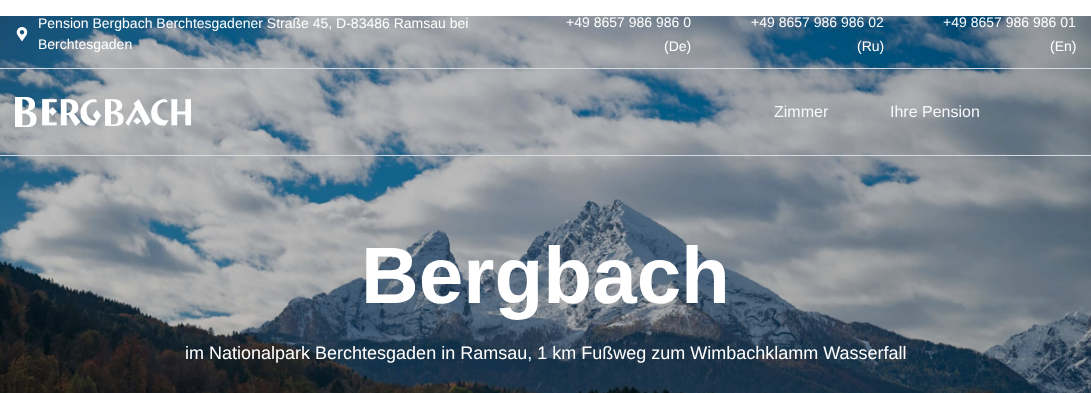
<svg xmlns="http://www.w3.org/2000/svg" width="1091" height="393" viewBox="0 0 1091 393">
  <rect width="100%" height="100%" fill="#ffffff"/>
  <image x="0" y="16" width="1091" height="377" href="img3.png"/>
  <rect x="0" y="68" width="1091" height="1" fill="#d2dae1"/>
  <image x="16" y="27" width="12" height="14" href="img1.png"/>
  <text x="38" y="28" font-family="Liberation Sans" font-size="14" fill="#ffffff">Pension Bergbach Berchtesgadener Straße 45, D-83486 Ramsau bei</text>
  <text x="38" y="49" font-family="Liberation Sans" font-size="14" fill="#ffffff">Berchtesgaden</text>
  <text x="566" y="27" font-family="Liberation Sans" font-size="14" fill="#ffffff">+49 8657 986 986 0</text>
  <text x="664" y="51" font-family="Liberation Sans" font-size="14" fill="#ffffff">(De)</text>
  <text x="751" y="27" font-family="Liberation Sans" font-size="14" fill="#ffffff">+49 8657 986 986 02</text>
  <text x="857" y="51" font-family="Liberation Sans" font-size="14" fill="#ffffff">(Ru)</text>
  <text x="943" y="27" font-family="Liberation Sans" font-size="14" fill="#ffffff">+49 8657 986 986 01</text>
  <text x="1050" y="51" font-family="Liberation Sans" font-size="14" fill="#ffffff">(En)</text>
  <rect x="0" y="155" width="1091" height="1" fill="#d2dae1"/>
  <image x="15" y="97" width="176" height="30" href="img2.png"/>
  <text x="774" y="117" font-family="Liberation Sans" font-size="16" fill="#f5f7fa">Zimmer</text>
  <text x="890" y="117" font-family="Liberation Sans" font-size="16" fill="#f5f7fa">Ihre Pension</text>
  <text x="361" y="303" font-family="Liberation Sans" font-size="80" font-weight="bold" fill="#ffffff">Bergbach</text>
  <text x="185" y="359" font-family="Liberation Sans" font-size="18" fill="#ffffff">im Nationalpark Berchtesgaden in Ramsau, 1 km Fußweg zum Wimbachklamm Wasserfall</text>
</svg>
